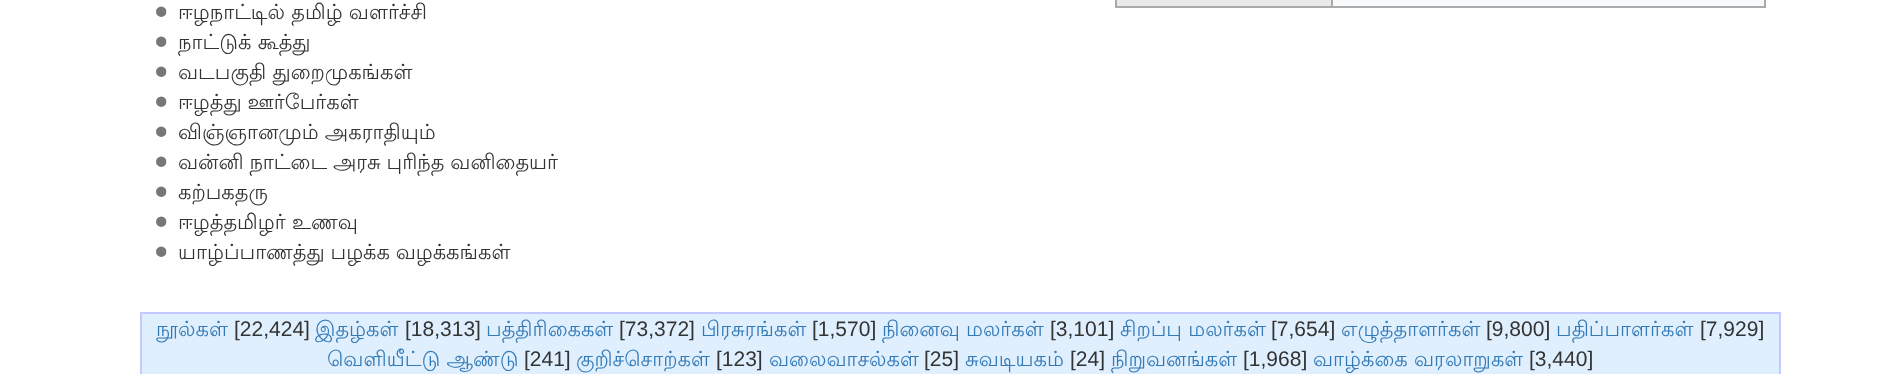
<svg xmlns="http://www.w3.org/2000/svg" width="1903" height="374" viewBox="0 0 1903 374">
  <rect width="100%" height="100%" fill="#ffffff"/>
  <image x="156" y="6" width="11" height="11" href="img1.png"/>
  <text x="178" y="19" font-family="Lohit Tamil" font-size="21" fill="#333333">ஈழநாட்டில் தமிழ் வளர்ச்சி</text>
  <image x="156" y="36" width="11" height="11" href="img1.png"/>
  <text x="178" y="49" font-family="Lohit Tamil" font-size="21" fill="#333333">நாட்டுக் கூத்து</text>
  <image x="156" y="66" width="11" height="11" href="img1.png"/>
  <text x="178" y="79" font-family="Lohit Tamil" font-size="21" fill="#333333">வடபகுதி துறைமுகங்கள்</text>
  <image x="156" y="96" width="11" height="11" href="img1.png"/>
  <text x="178" y="109" word-spacing="-0.5" font-family="Lohit Tamil" font-size="21" fill="#333333">ஈழத்து ஊர்பேர்கள்</text>
  <image x="156" y="126" width="11" height="11" href="img1.png"/>
  <text x="178" y="139" font-family="Lohit Tamil" font-size="21" fill="#333333">விஞ்ஞானமும் அகராதியும்</text>
  <image x="156" y="156" width="11" height="11" href="img1.png"/>
  <text x="178" y="169" word-spacing="-0.5" font-family="Lohit Tamil" font-size="21" fill="#333333">வன்னி நாட்டை அரசு புரிந்த வனிதையர்</text>
  <image x="156" y="186" width="11" height="11" href="img1.png"/>
  <text x="178" y="199" font-family="Lohit Tamil" font-size="21" fill="#333333">கற்பகதரு</text>
  <image x="156" y="216" width="11" height="11" href="img1.png"/>
  <text x="178" y="229" font-family="Lohit Tamil" font-size="21" fill="#333333">ஈழத்தமிழர் உணவு</text>
  <image x="156" y="246" width="11" height="11" href="img1.png"/>
  <text x="178" y="259" word-spacing="-0.5" font-family="Lohit Tamil" font-size="21" fill="#333333">யாழ்ப்பாணத்து பழக்க வழக்கங்கள்</text>
  <rect x="1333" y="0" width="433" height="6" fill="#f8f9fa"/>
  <rect x="1115" y="0" width="217" height="6" fill="#e9e9e9"/>
  <rect x="1764" y="0" width="2" height="8" fill="#aaaaaa"/>
  <rect x="1331" y="6" width="435" height="2" fill="#aaaaaa"/>
  <rect x="1331" y="0" width="2" height="8" fill="#aaaaaa"/>
  <rect x="1115" y="6" width="217" height="2" fill="#aaaaaa"/>
  <rect x="1115" y="0" width="2" height="8" fill="#aaaaaa"/>
  <rect x="142" y="314" width="1637" height="60" fill="#dfeffe"/>
  <rect x="140" y="312" width="1641" height="2" fill="#c6c9ff"/>
  <rect x="1779" y="312" width="2" height="62" fill="#c6c9ff"/>
  <rect x="140" y="312" width="2" height="62" fill="#c6c9ff"/>
  <text x="156" y="336" font-family="Lohit Tamil" font-size="21" fill="#337ab7">நூல்கள்</text>
  <text x="234" y="336" font-family="Liberation Sans" font-size="21" fill="#333333">[22,424]</text>
  <text x="315" y="336" font-family="Lohit Tamil" font-size="21" fill="#337ab7">இதழ்கள்</text>
  <text x="405" y="336" font-family="Liberation Sans" font-size="21" fill="#333333">[18,313]</text>
  <text x="486" y="336" font-family="Lohit Tamil" font-size="21" fill="#337ab7">பத்திரிகைகள்</text>
  <text x="619" y="336" font-family="Liberation Sans" font-size="21" fill="#333333">[73,372]</text>
  <text x="701" y="336" font-family="Lohit Tamil" font-size="21" fill="#337ab7">பிரசுரங்கள்</text>
  <text x="812" y="336" font-family="Liberation Sans" font-size="21" fill="#333333">[1,570]</text>
  <text x="882" y="336" font-family="Lohit Tamil" font-size="21" fill="#337ab7">நினைவு மலர்கள்</text>
  <text x="1050" y="336" font-family="Liberation Sans" font-size="21" fill="#333333">[3,101]</text>
  <text x="1120" y="336" font-family="Lohit Tamil" font-size="21" fill="#337ab7">சிறப்பு மலர்கள்</text>
  <text x="1271" y="336" font-family="Liberation Sans" font-size="21" fill="#333333">[7,654]</text>
  <text x="1341" y="336" font-family="Lohit Tamil" font-size="21" fill="#337ab7">எழுத்தாளர்கள்</text>
  <text x="1486" y="336" font-family="Liberation Sans" font-size="21" fill="#333333">[9,800]</text>
  <text x="1556" y="336" font-family="Lohit Tamil" font-size="21" fill="#337ab7">பதிப்பாளர்கள்</text>
  <text x="1700" y="336" font-family="Liberation Sans" font-size="21" fill="#333333">[7,929]</text>
  <text x="327" y="366" font-family="Lohit Tamil" font-size="21" fill="#337ab7">வெளியீட்டு ஆண்டு</text>
  <text x="524" y="366" font-family="Liberation Sans" font-size="21" fill="#333333">[241]</text>
  <text x="576" y="366" font-family="Lohit Tamil" font-size="21" fill="#337ab7">குறிச்சொற்கள்</text>
  <text x="716" y="366" font-family="Liberation Sans" font-size="21" fill="#333333">[123]</text>
  <text x="769" y="366" font-family="Lohit Tamil" font-size="21" fill="#337ab7">வலைவாசல்கள்</text>
  <text x="924" y="366" font-family="Liberation Sans" font-size="21" fill="#333333">[25]</text>
  <text x="965" y="366" font-family="Lohit Tamil" font-size="21" fill="#337ab7">சுவடியகம்</text>
  <text x="1070" y="366" font-family="Liberation Sans" font-size="21" fill="#333333">[24]</text>
  <text x="1111" y="366" font-family="Lohit Tamil" font-size="21" fill="#337ab7">நிறுவனங்கள்</text>
  <text x="1243" y="366" font-family="Liberation Sans" font-size="21" fill="#333333">[1,968]</text>
  <text x="1313" y="366" font-family="Lohit Tamil" font-size="21" fill="#337ab7">வாழ்க்கை வரலாறுகள்</text>
  <text x="1529" y="366" font-family="Liberation Sans" font-size="21" fill="#333333">[3,440]</text>
</svg>
